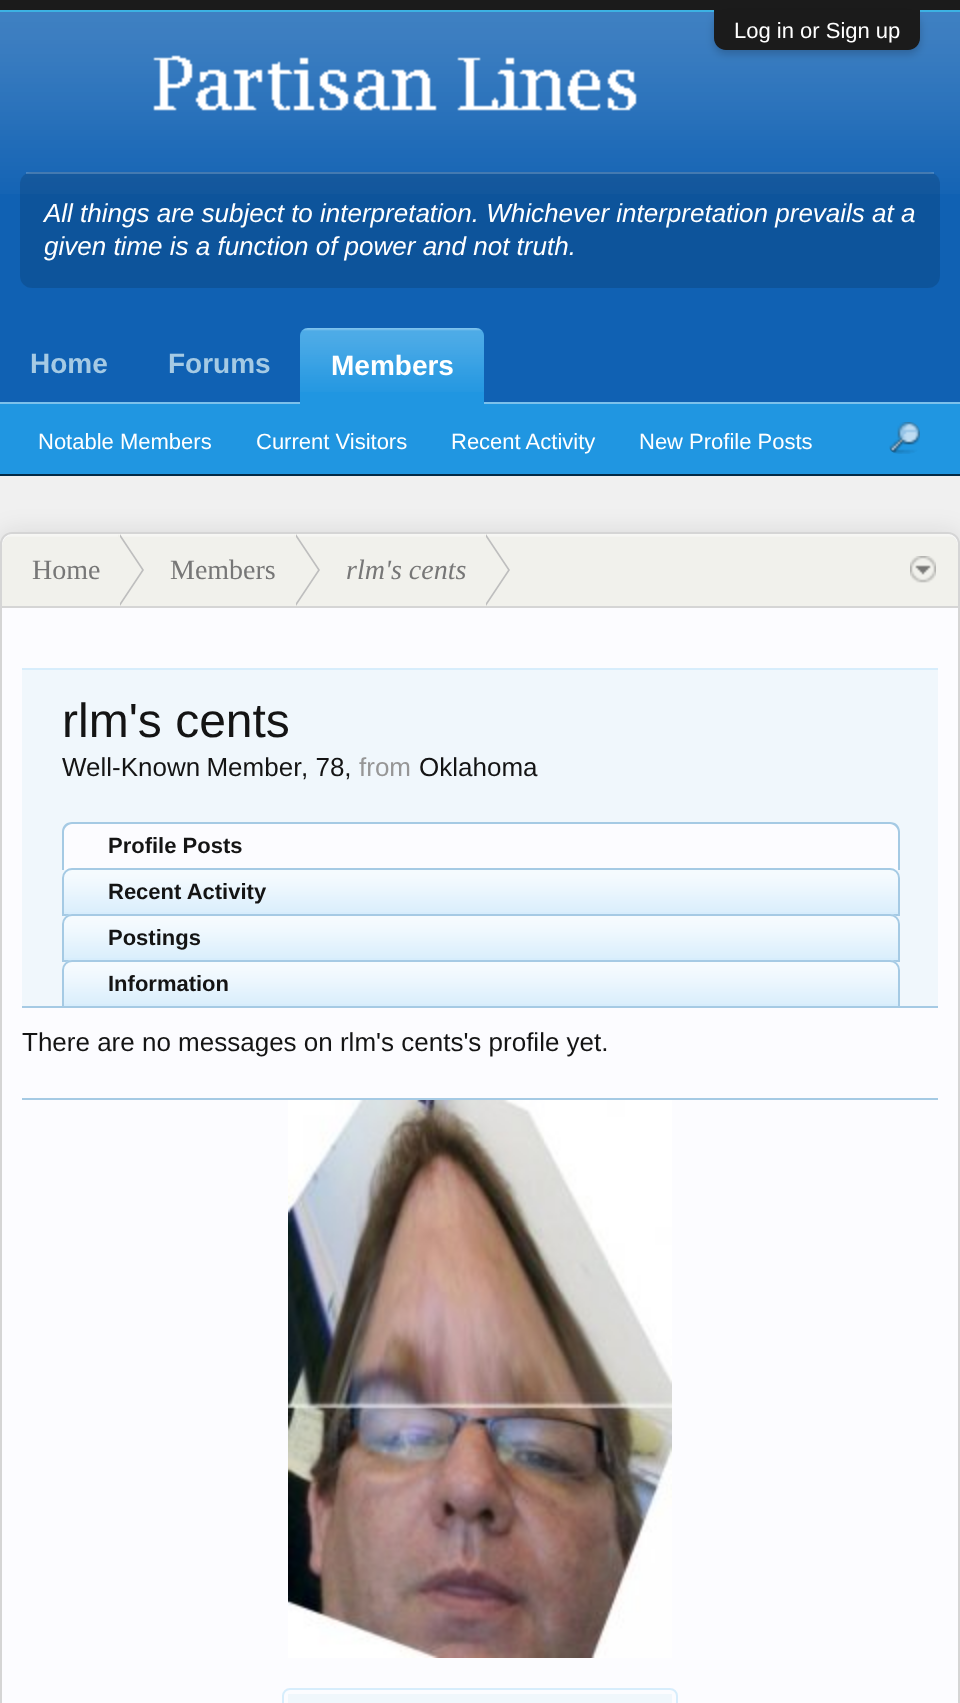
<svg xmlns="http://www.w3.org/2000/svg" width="960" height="1703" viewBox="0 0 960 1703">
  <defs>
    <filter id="blur1" x="-50%" y="-200%" width="200%" height="500%"><feGaussianBlur stdDeviation="4"/></filter>
    <filter id="blur2" x="-50%" y="-200%" width="200%" height="500%"><feGaussianBlur stdDeviation="12"/></filter>
  </defs>
  <rect width="100%" height="100%" fill="#f0f0f0"/>
  <rect x="0" y="0" width="960" height="10" fill="#1b1b1b"/>
  <rect x="0" y="10" width="960" height="2" fill="#3cb2e3"/>
  <rect x="0" y="12" width="960" height="390" fill="#1061b3"/>
  <image x="0" y="12" width="960" height="182" href="img1.png"/>
  <rect x="714" y="14" width="206" height="40" rx="12" fill="#000000" fill-opacity="0.2" filter="url(#blur1)"/>
  <path d="M714 10H920V38C920 44.5 914.5 50 908 50H726C719.5 50 714 44.5 714 38Z" fill="#1b1b1b"/>
  <text x="734" y="38" font-family="Liberation Sans" font-size="22" fill="#ffffff">Log in or Sign up</text>
  <image x="153" y="55" width="484" height="56" href="img2.png"/>
  <rect x="20" y="172" width="920" height="116" rx="12" fill="#000000" fill-opacity="0.13"/>
  <rect x="26" y="172" width="908" height="2" fill="#ffffff" fill-opacity="0.2"/>
  <text x="44" y="222" font-family="Liberation Sans" font-size="26" font-style="italic" fill="#ffffff">All things are subject to interpretation. Whichever interpretation prevails at a</text>
  <text x="44" y="255" font-family="Liberation Sans" font-size="26" font-style="italic" fill="#ffffff">given time is a function of power and not truth.</text>
  <text x="30" y="373" font-family="Liberation Sans" font-size="28" font-weight="bold" fill="#a5cae4">Home</text>
  <text x="168" y="373" font-family="Liberation Sans" font-size="28" font-weight="bold" fill="#a5cae4">Forums</text>
  <rect x="0" y="402" width="960" height="2" fill="#7cc1ec"/>
  <path d="M308 328H476C480.5 328 484 331.5 484 336V404H300V336C300 331.5 303.5 328 308 328Z" fill="#2096e1"/>
  <image x="300" y="328" width="184" height="64" href="img3.png"/>
  <text x="331" y="375" font-family="Liberation Sans" font-size="28" font-weight="bold" fill="#ffffff">Members</text>
  <rect x="0" y="404" width="960" height="70" fill="#2096e1"/>
  <rect x="0" y="474" width="960" height="2" fill="#032a46"/>
  <text x="38" y="449" font-family="Liberation Sans" font-size="22" fill="#ffffff">Notable Members</text>
  <text x="256" y="449" font-family="Liberation Sans" font-size="22" fill="#ffffff">Current Visitors</text>
  <text x="451" y="449" font-family="Liberation Sans" font-size="22" fill="#ffffff">Recent Activity</text>
  <text x="639" y="449" font-family="Liberation Sans" font-size="22" fill="#ffffff">New Profile Posts</text>
  <image x="889" y="422" width="31" height="32" href="img4.png"/>
  <rect x="0" y="532" width="960" height="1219" rx="12" fill="#000000" fill-opacity="0.1" filter="url(#blur2)"/>
  <rect x="1" y="533" width="958" height="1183" rx="11" fill="#fcfcff" stroke="#d5d5d5" stroke-width="2"/>
  <path d="M14 534H946C952.5 534 958 539.5 958 546V608H2V546C2 539.5 7.5 534 14 534Z" fill="#f1f1ec"/>
  <image x="7" y="534" width="946" height="3" href="img5.png"/>
  <rect x="2" y="606" width="956" height="2" fill="#d5d5d5"/>
  <text x="32" y="579" font-family="Liberation Serif" font-size="28" fill="#777777">Home</text>
  <path d="M120 606V534L144 570Z" fill="#bebebe"/>
  <path d="M118 606V534L142 570Z" fill="#f1f1ec"/>
  <text x="170" y="579" font-family="Liberation Serif" font-size="28" fill="#777777">Members</text>
  <path d="M296 606V534L320 570Z" fill="#bebebe"/>
  <path d="M294 606V534L318 570Z" fill="#f1f1ec"/>
  <text x="346" y="579" font-family="Liberation Serif" font-size="28" font-style="italic" fill="#777777">rlm's cents</text>
  <path d="M486 606V534L510 570Z" fill="#bebebe"/>
  <path d="M484 606V534L508 570Z" fill="#f1f1ec"/>
  <image x="910" y="556" width="26" height="27" href="img6.png"/>
  <rect x="22" y="1098" width="916" height="2" fill="#a5cae4"/>
  <rect x="22" y="668" width="916" height="2" fill="#d7edfc"/>
  <rect x="22" y="670" width="916" height="336" fill="#f0f7fc"/>
  <text x="62" y="737" font-family="Liberation Sans" font-size="48" fill="#141414">rlm's cents</text>
  <text x="62" y="776" word-spacing="-1" font-family="Liberation Sans" font-size="26" fill="#141414">Well-Known Member</text>
  <text x="301" y="776" font-family="Liberation Sans" font-size="26" fill="#141414">, 78,</text>
  <text x="359" y="776" font-family="Liberation Sans" font-size="26" fill="#969696">from</text>
  <text x="419" y="776" font-family="Liberation Sans" font-size="26" fill="#141414">Oklahoma</text>
  <rect x="22" y="1006" width="916" height="2" fill="#a5cae4"/>
  <path d="M72 822H890C895.5 822 900 826.5 900 832V870H62V832C62 826.5 66.5 822 72 822Z" fill="#fcfcff"/>
  <path d="M72 822H890C896 822 900 826 900 832V870H62V832C62 826 66 822 72 822ZM72 824H890C894 824 898 828 898 832V870H64V832C64 828 68 824 72 824Z" fill="#a5cae4" fill-rule="evenodd"/>
  <text x="108" y="853" font-family="Liberation Sans" font-size="22" font-weight="bold" fill="#141414">Profile Posts</text>
  <path d="M72 868H890C895.5 868 900 872.5 900 878V916H62V878C62 872.5 66.5 868 72 868Z" fill="#d7edfc"/>
  <image x="62" y="870" width="838" height="42" href="img7.png"/>
  <path d="M72 869H890C895 869 899 873 899 878V915H63V878C63 873 67 869 72 869Z" fill="none" stroke="#a5cae4" stroke-width="2"/>
  <text x="108" y="899" font-family="Liberation Sans" font-size="22" font-weight="bold" fill="#141414">Recent Activity</text>
  <path d="M72 914H890C895.5 914 900 918.5 900 924V962H62V924C62 918.5 66.5 914 72 914Z" fill="#d7edfc"/>
  <image x="62" y="916" width="838" height="42" href="img8.png"/>
  <path d="M72 915H890C895 915 899 919 899 924V961H63V924C63 919 67 915 72 915Z" fill="none" stroke="#a5cae4" stroke-width="2"/>
  <text x="108" y="945" font-family="Liberation Sans" font-size="22" font-weight="bold" fill="#141414">Postings</text>
  <path d="M72 960H890C895.5 960 900 964.5 900 970V1008H62V970C62 964.5 66.5 960 72 960Z" fill="#d7edfc"/>
  <image x="62" y="962" width="838" height="42" href="img8.png"/>
  <path d="M72 961H890C895 961 899 965 899 970V1007H63V970C63 965 67 961 72 961Z" fill="none" stroke="#a5cae4" stroke-width="2"/>
  <text x="108" y="991" font-family="Liberation Sans" font-size="22" font-weight="bold" fill="#141414">Information</text>
  <text x="22" y="1051" font-family="Liberation Sans" font-size="26" fill="#141414">There are no messages on rlm's cents's profile yet.</text>
  <image x="288" y="1100" width="384" height="558" href="img9.png"/>
  <rect x="283" y="1689" width="394" height="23" rx="7" fill="none" stroke="#d7edfc" stroke-width="2"/>
  <rect x="288" y="1694" width="384" height="9" fill="#f0f7fc"/>
</svg>
